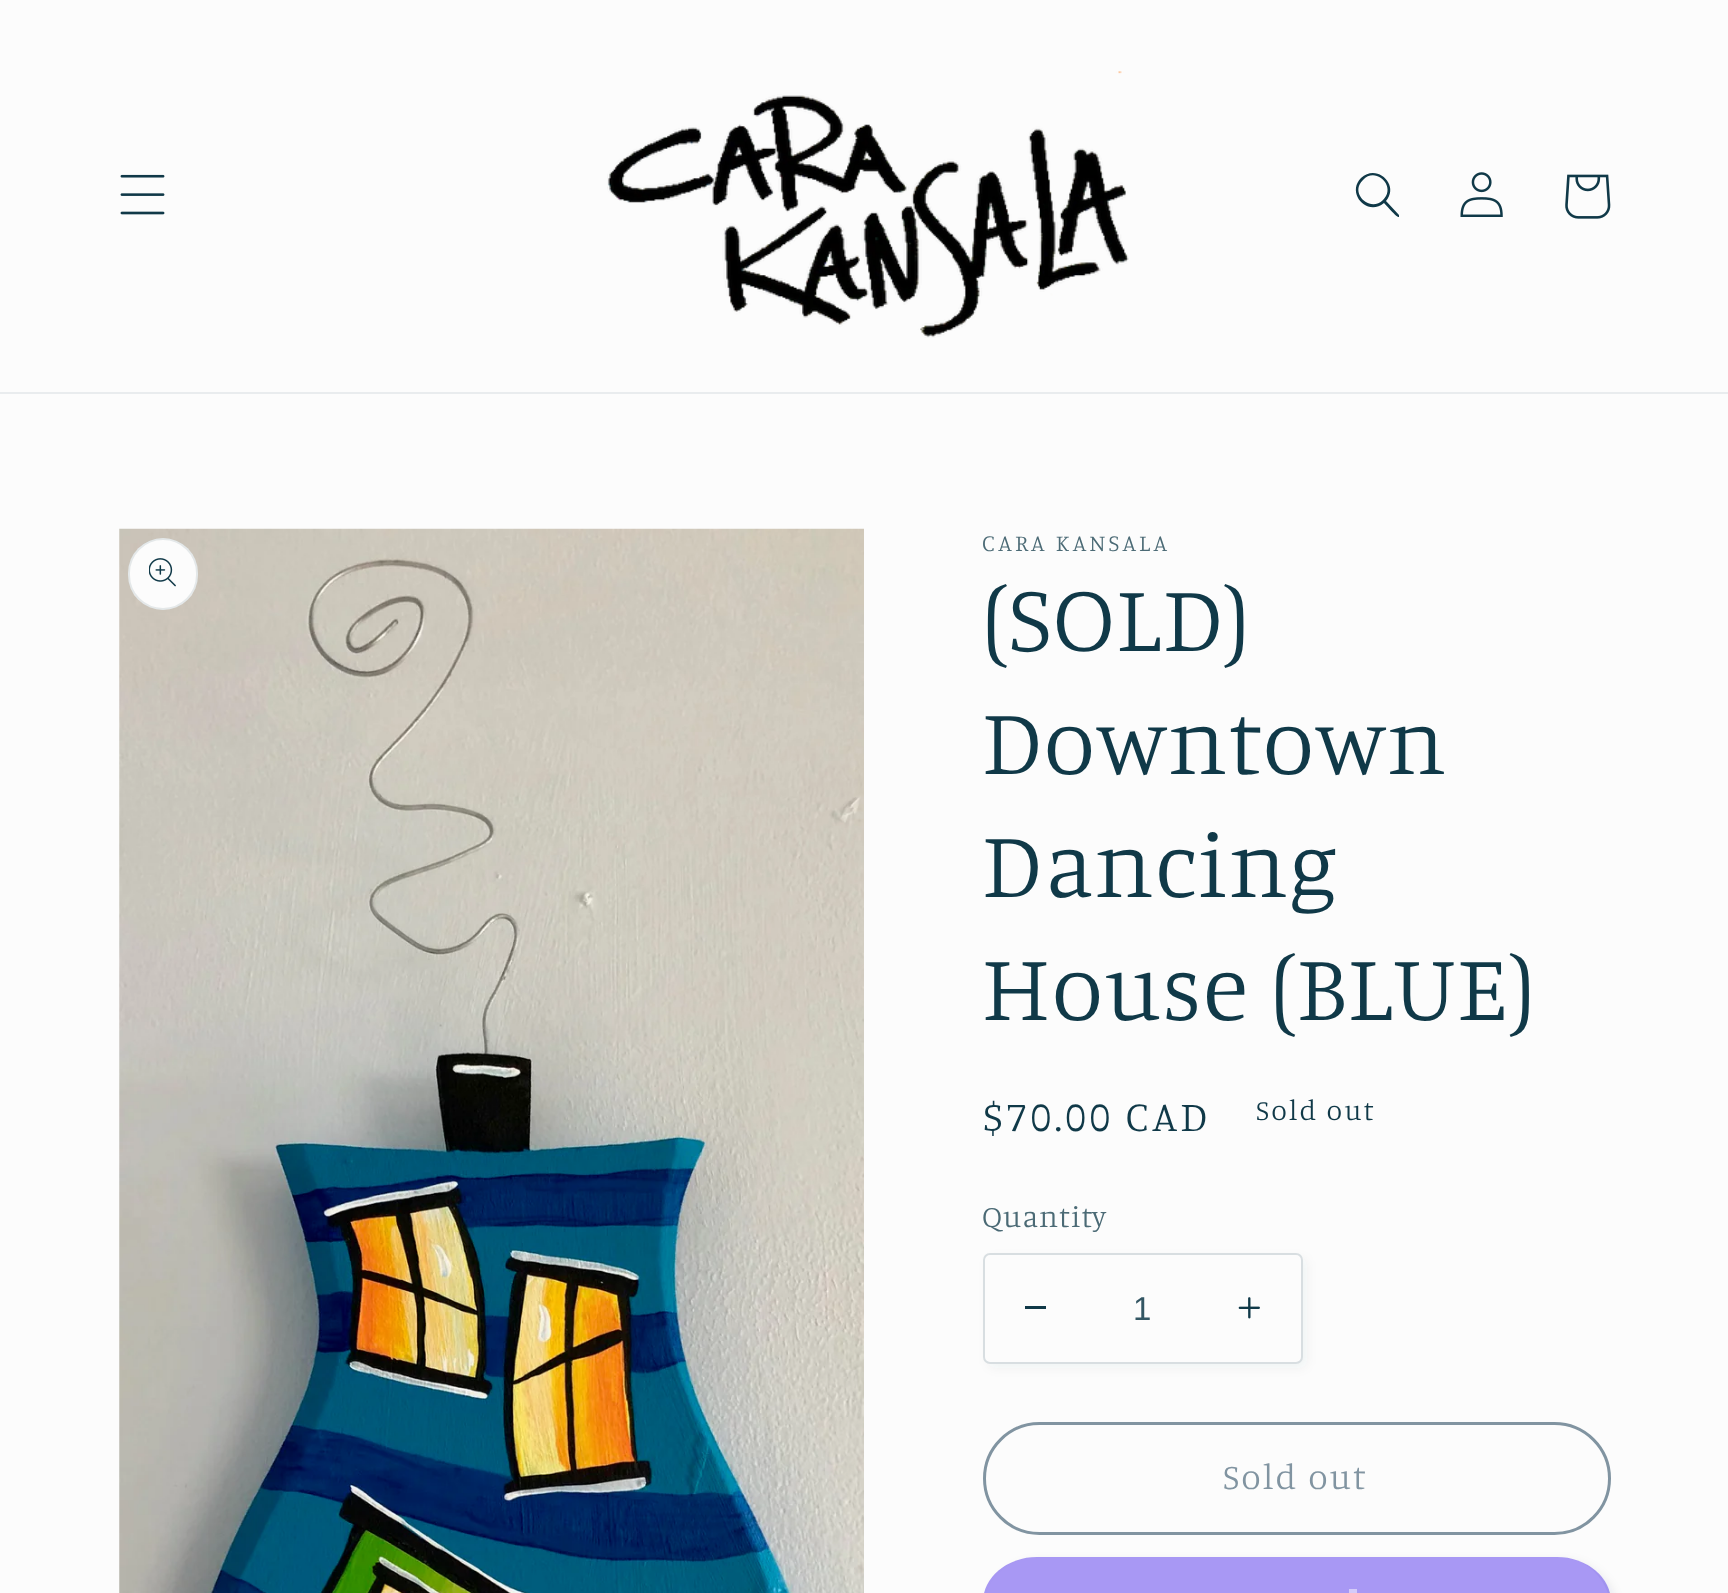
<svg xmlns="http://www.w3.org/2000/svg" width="1728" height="1593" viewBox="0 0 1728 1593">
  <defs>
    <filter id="blur1" x="-50%" y="-200%" width="200%" height="500%"><feGaussianBlur stdDeviation="5.5"/></filter>
    <clipPath id="clip1"><path d="M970 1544H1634V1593H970ZM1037 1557H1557C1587 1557 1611 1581 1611 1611C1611 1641 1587 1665 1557 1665H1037C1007 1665 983 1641 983 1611C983 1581 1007 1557 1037 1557Z" clip-rule="evenodd"/></clipPath>
  </defs>
  <rect width="100%" height="100%" fill="#fcfcfc"/>
  <rect x="0" y="392" width="1728" height="2" fill="#e9ecee"/>
  <image x="120" y="174" width="45" height="41" href="img1.png"/>
  <image x="607" y="71" width="522" height="267" href="img2.png"/>
  <path d="M1383 200C1370 213 1349 193 1363 180C1376 166 1397 187 1383 200ZM1384 203C1367 217 1346 193 1361 178C1377 163 1400 185 1386 201L1399 215V217C1397 218 1386 205 1384 203Z" fill="#103948" fill-rule="evenodd"/>
  <image x="1460" y="172" width="43" height="45" href="img3.png"/>
  <image x="1565" y="174" width="46" height="45" href="img4.png"/>
  <image x="119" y="528" width="745" height="1065" href="img5.png"/>
  <rect x="128" y="538" width="70" height="72" rx="35" fill="#fcfcfc"/>
  <rect x="129" y="539" width="68" height="70" rx="34" fill="none" stroke="#103948" stroke-opacity="0.1" stroke-width="2"/>
  <image x="149" y="558" width="27" height="29" href="img6.png"/>
  <text x="982" y="551" font-family="Manuale" font-size="23.5" font-weight="300" letter-spacing="3" fill="#4b6a75">CARA KANSALA</text>
  <text x="982" y="651" font-family="Manuale" font-size="94.5" font-weight="300" letter-spacing="1.5" fill="#103948">(SOLD)</text>
  <text x="982" y="774" font-family="Manuale" font-size="94.5" font-weight="300" letter-spacing="1.5" fill="#103948">Downtown</text>
  <text x="982" y="897" font-family="Manuale" font-size="94.5" font-weight="300" letter-spacing="1.5" fill="#103948">Dancing</text>
  <text x="982" y="1020" font-family="Manuale" font-size="94.5" font-weight="300" letter-spacing="1.5" fill="#103948">House (BLUE)</text>
  <text x="982" y="1131" font-family="Manuale" font-size="42.5" font-weight="300" letter-spacing="3" fill="#103948">$70.00 CAD</text>
  <text x="1256" y="1120" font-family="Manuale" font-size="28.5" font-weight="300" letter-spacing="2.25" fill="#103948">Sold out</text>
  <text x="982" y="1227" font-family="Manuale" font-size="30.5" font-weight="300" letter-spacing="1" fill="#4b6a75">Quantity</text>
  <rect x="988" y="1258" width="319" height="110" rx="7" fill="#103948" fill-opacity="0.05" filter="url(#blur1)"/>
  <rect x="983" y="1253" width="320" height="111" rx="7" fill="#fcfcfc"/>
  <rect x="1025" y="1306" width="21" height="3" fill="#103948"/>
  <image x="1238" y="1297" width="22" height="22" href="img7.png"/>
  <rect x="984" y="1254" width="318" height="109" rx="6" fill="none" stroke="#103948" stroke-opacity="0.15" stroke-width="2"/>
  <text x="1133" y="1320" font-family="Liberation Sans" font-size="33" fill="#335663">1</text>
  <rect x="984.5" y="1423.5" width="625" height="110" rx="55" fill="none" stroke="#8194a1" stroke-width="3"/>
  <text x="1223" y="1489" font-family="Manuale" font-size="35.5" font-weight="300" letter-spacing="2.25" fill="#8194a1">Sold out</text>
  <g clip-path="url(#clip1)">
    <rect x="988" y="1562" width="628" height="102" rx="54" fill="#103948" fill-opacity="0.1" filter="url(#blur1)"/>
  </g>
  <rect x="983" y="1557" width="628" height="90" rx="54" fill="#5433eb" fill-opacity="0.5"/>
  <rect x="1349" y="1589" width="8" height="4" fill="#d4cbf9"/>
</svg>
